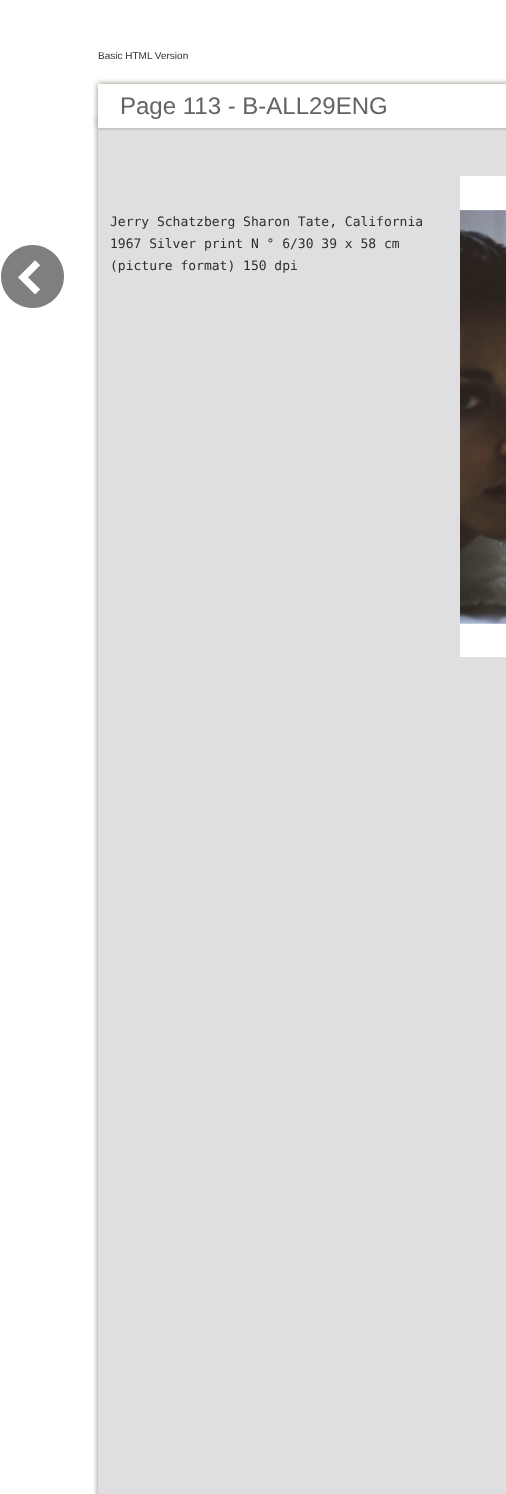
<svg xmlns="http://www.w3.org/2000/svg" width="506" height="1494" viewBox="0 0 506 1494">
  <rect width="100%" height="100%" fill="#ffffff"/>
  <image x="1" y="245" width="63" height="63" href="img1.png"/>
  <text x="98" y="59" font-family="Liberation Sans" font-size="10" fill="#2f2f2f">Basic HTML Version</text>
  <image x="92" y="79" width="414" height="53" href="img2.png"/>
  <text x="120" y="114" font-family="Liberation Sans" font-size="24" fill="#636363">Page 113 - B-ALL29ENG</text>
  <image x="93" y="132" width="413" height="1362" href="img3.png"/>
  <text x="110" y="226" font-family="DejaVu Sans Mono" font-size="13" fill="#2f2f2f">Jerry Schatzberg Sharon Tate, California</text>
  <text x="110" y="248" font-family="DejaVu Sans Mono" font-size="13" fill="#2f2f2f">1967 Silver print N ° 6/30 39 x 58 cm</text>
  <text x="110" y="270" font-family="DejaVu Sans Mono" font-size="13" fill="#2f2f2f">(picture format) 150 dpi</text>
  <image x="460" y="176" width="46" height="481" href="img4.png"/>
</svg>
